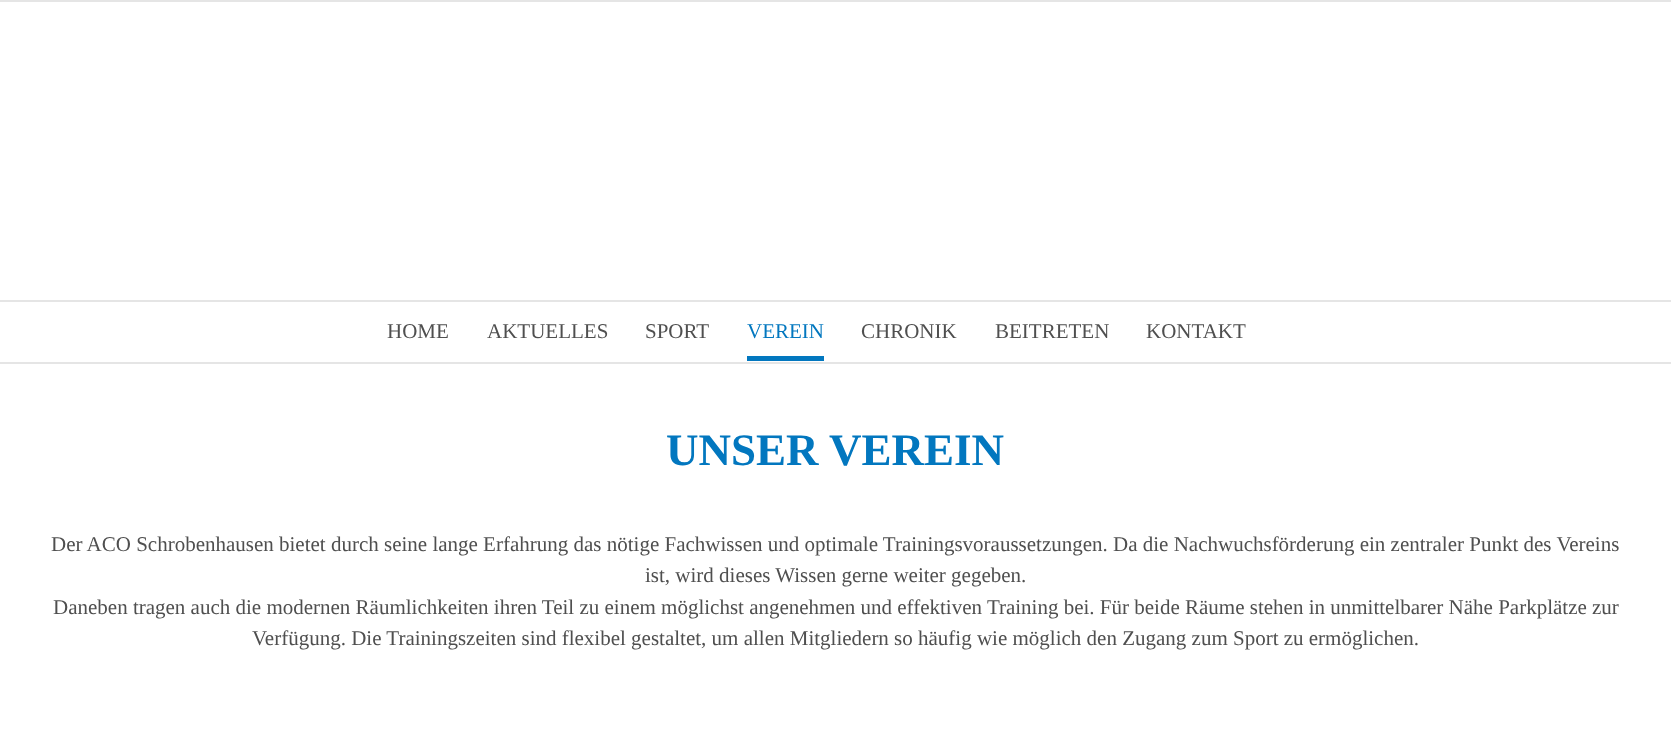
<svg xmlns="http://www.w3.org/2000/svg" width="1671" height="730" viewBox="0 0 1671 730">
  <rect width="100%" height="100%" fill="#ffffff"/>
  <rect x="0" y="0" width="1671" height="2" fill="#e5e5e5"/>
  <rect x="0" y="300" width="1671" height="2" fill="#e5e5e5"/>
  <rect x="0" y="362" width="1671" height="2" fill="#e5e5e5"/>
  <text x="387" y="338" font-family="Liberation Serif" font-size="21" fill="#4f4f4f">HOME</text>
  <text x="487" y="338" font-family="Liberation Serif" font-size="21" fill="#4f4f4f">AKTUELLES</text>
  <text x="645" y="338" font-family="Liberation Serif" font-size="21" fill="#4f4f4f">SPORT</text>
  <text x="747" y="338" font-family="Liberation Serif" font-size="21" fill="#0277bf">VEREIN</text>
  <rect x="747" y="356" width="77" height="5" fill="#0277bf"/>
  <text x="861" y="338" font-family="Liberation Serif" font-size="21" fill="#4f4f4f">CHRONIK</text>
  <text x="995" y="338" font-family="Liberation Serif" font-size="21" fill="#4f4f4f">BEITRETEN</text>
  <text x="1146" y="338" font-family="Liberation Serif" font-size="21" fill="#4f4f4f">KONTAKT</text>
  <text x="666" y="465" font-family="Liberation Serif" font-size="45" font-weight="bold" fill="#0277bf">UNSER VEREIN</text>
  <text x="51" y="551" font-family="Liberation Serif" font-size="21" fill="#4f4f4f">Der ACO Schrobenhausen bietet durch seine lange Erfahrung das nötige Fachwissen und optimale Trainingsvoraussetzungen. Da die Nachwuchsförderung ein zentraler Punkt des Vereins</text>
  <text x="645" y="582" font-family="Liberation Serif" font-size="21" fill="#4f4f4f">ist, wird dieses Wissen gerne weiter gegeben.</text>
  <text x="53" y="614" font-family="Liberation Serif" font-size="21" fill="#4f4f4f">Daneben tragen auch die modernen Räumlichkeiten ihren Teil zu einem möglichst angenehmen und effektiven Training bei. Für beide Räume stehen in unmittelbarer Nähe Parkplätze zur</text>
  <text x="252" y="645" font-family="Liberation Serif" font-size="21" fill="#4f4f4f">Verfügung. Die Trainingszeiten sind flexibel gestaltet, um allen Mitgliedern so häufig wie möglich den Zugang zum Sport zu ermöglichen.</text>
</svg>
